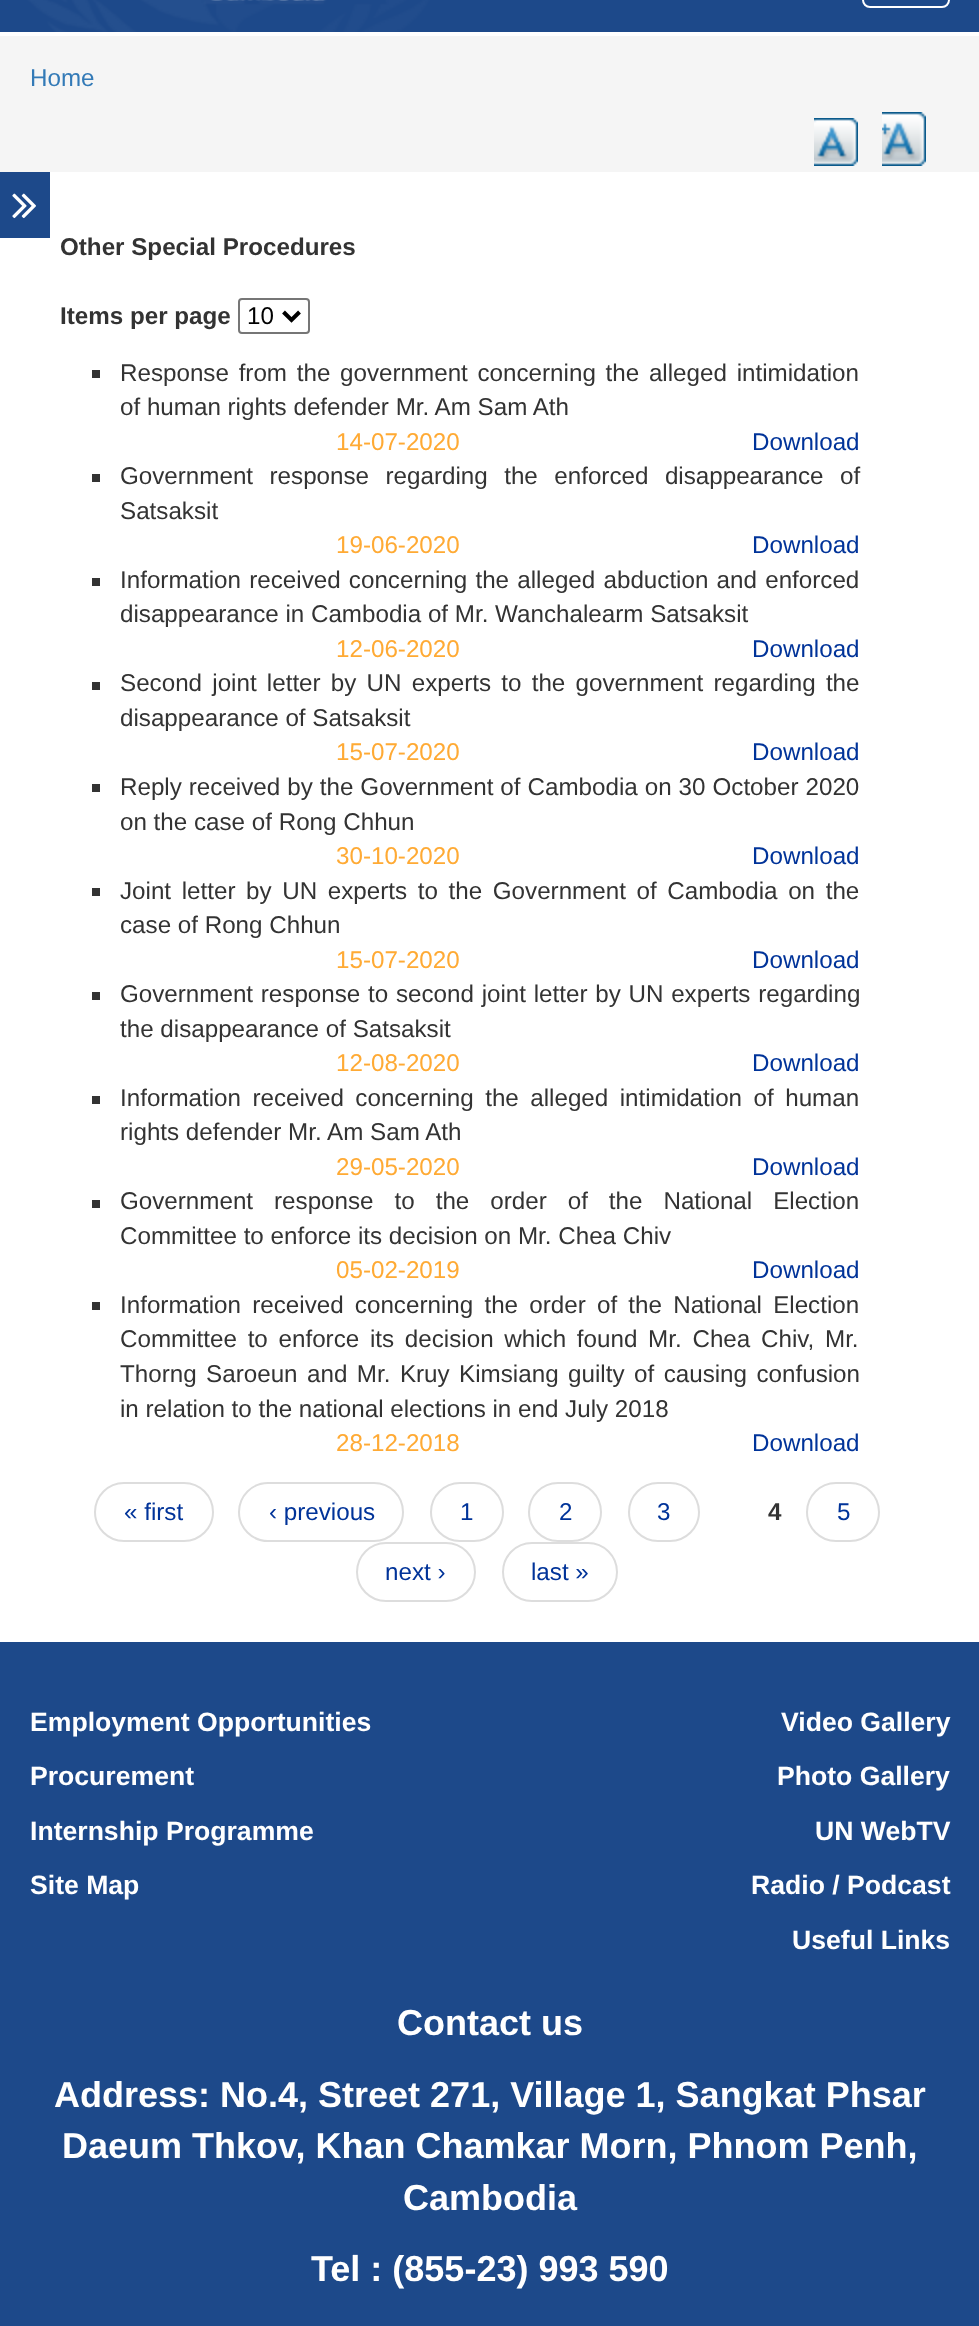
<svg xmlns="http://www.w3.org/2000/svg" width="979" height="2326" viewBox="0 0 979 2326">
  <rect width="100%" height="100%" fill="#ffffff"/>
  <rect x="548" y="0" width="431" height="32" fill="#1d498a"/>
  <rect x="863" y="-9" width="86" height="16" rx="7" fill="none" stroke="#ffffff" stroke-width="2"/>
  <image x="0" y="0" width="548" height="32" href="img1.png"/>
  <rect x="0" y="36" width="979" height="136" fill="#f5f5f5"/>
  <text x="30" y="86" font-family="Liberation Sans" font-size="24.2" fill="#337ab7">Home</text>
  <image x="814" y="118" width="44" height="48" href="img2.png"/>
  <image x="882" y="112" width="44" height="54" href="img3.png"/>
  <rect x="0" y="172" width="50" height="66" fill="#1d498a"/>
  <image x="12" y="193" width="24" height="26" href="img4.png"/>
  <text x="60" y="255" font-family="Liberation Sans" font-size="24.2" font-weight="bold" fill="#333333">Other Special Procedures</text>
  <text x="60" y="324" font-family="Liberation Sans" font-size="24.2" font-weight="bold" fill="#333333">Items per page</text>
  <rect x="239" y="299" width="70" height="34" rx="3" fill="none" stroke="#767676" stroke-width="2"/>
  <path d="M283.5 312L291.5 320L299.5 312" fill="none" stroke="#000000" stroke-width="4"/>
  <text x="247" y="324" font-family="Liberation Sans" font-size="24.2" fill="#000000">10</text>
  <rect x="92" y="370" width="8" height="8" fill="#333333"/>
  <text x="120" y="381" word-spacing="3" font-family="Liberation Sans" font-size="24.2" fill="#333333">Response from the government concerning the alleged intimidation</text>
  <text x="120" y="415" font-family="Liberation Sans" font-size="24.2" fill="#333333">of human rights defender Mr. Am Sam Ath</text>
  <text x="336" y="450" font-family="Liberation Sans" font-size="24.2" fill="#ffaa34">14-07-2020</text>
  <text x="752" y="450" font-family="Liberation Sans" font-size="24.2" fill="#003399">Download</text>
  <rect x="92" y="474" width="8" height="8" fill="#333333"/>
  <text x="120" y="484" word-spacing="9.75" font-family="Liberation Sans" font-size="24.2" fill="#333333">Government response regarding the enforced disappearance of</text>
  <text x="120" y="519" font-family="Liberation Sans" font-size="24.2" fill="#333333">Satsaksit</text>
  <text x="336" y="553" font-family="Liberation Sans" font-size="24.2" fill="#ffaa34">19-06-2020</text>
  <text x="752" y="553" font-family="Liberation Sans" font-size="24.2" fill="#003399">Download</text>
  <rect x="92" y="578" width="8" height="8" fill="#333333"/>
  <text x="120" y="588" word-spacing="1.5" font-family="Liberation Sans" font-size="24.2" fill="#333333">Information received concerning the alleged abduction and enforced</text>
  <text x="120" y="622" font-family="Liberation Sans" font-size="24.2" fill="#333333">disappearance in Cambodia of Mr. Wanchalearm Satsaksit</text>
  <text x="336" y="657" font-family="Liberation Sans" font-size="24.2" fill="#ffaa34">12-06-2020</text>
  <text x="752" y="657" font-family="Liberation Sans" font-size="24.2" fill="#003399">Download</text>
  <rect x="92" y="682" width="8" height="8" fill="#333333"/>
  <text x="120" y="691" word-spacing="3.5" font-family="Liberation Sans" font-size="24.2" fill="#333333">Second joint letter by UN experts to the government regarding the</text>
  <text x="120" y="726" font-family="Liberation Sans" font-size="24.2" fill="#333333">disappearance of Satsaksit</text>
  <text x="336" y="760" font-family="Liberation Sans" font-size="24.2" fill="#ffaa34">15-07-2020</text>
  <text x="752" y="760" font-family="Liberation Sans" font-size="24.2" fill="#003399">Download</text>
  <rect x="92" y="784" width="8" height="8" fill="#333333"/>
  <text x="120" y="795" word-spacing="0.25" font-family="Liberation Sans" font-size="24.2" fill="#333333">Reply received by the Government of Cambodia on 30 October 2020</text>
  <text x="120" y="830" font-family="Liberation Sans" font-size="24.2" fill="#333333">on the case of Rong Chhun</text>
  <text x="336" y="864" font-family="Liberation Sans" font-size="24.2" fill="#ffaa34">30-10-2020</text>
  <text x="752" y="864" font-family="Liberation Sans" font-size="24.2" fill="#003399">Download</text>
  <rect x="92" y="888" width="8" height="8" fill="#333333"/>
  <text x="120" y="899" word-spacing="3.9" font-family="Liberation Sans" font-size="24.2" fill="#333333">Joint letter by UN experts to the Government of Cambodia on the</text>
  <text x="120" y="933" font-family="Liberation Sans" font-size="24.2" fill="#333333">case of Rong Chhun</text>
  <text x="336" y="968" font-family="Liberation Sans" font-size="24.2" fill="#ffaa34">15-07-2020</text>
  <text x="752" y="968" font-family="Liberation Sans" font-size="24.2" fill="#003399">Download</text>
  <rect x="92" y="992" width="8" height="8" fill="#333333"/>
  <text x="120" y="1002" word-spacing="1" font-family="Liberation Sans" font-size="24.2" fill="#333333">Government response to second joint letter by UN experts regarding</text>
  <text x="120" y="1037" font-family="Liberation Sans" font-size="24.2" fill="#333333">the disappearance of Satsaksit</text>
  <text x="336" y="1071" font-family="Liberation Sans" font-size="24.2" fill="#ffaa34">12-08-2020</text>
  <text x="752" y="1071" font-family="Liberation Sans" font-size="24.2" fill="#003399">Download</text>
  <rect x="92" y="1096" width="8" height="8" fill="#333333"/>
  <text x="120" y="1106" word-spacing="4.75" font-family="Liberation Sans" font-size="24.2" fill="#333333">Information received concerning the alleged intimidation of human</text>
  <text x="120" y="1140" font-family="Liberation Sans" font-size="24.2" fill="#333333">rights defender Mr. Am Sam Ath</text>
  <text x="336" y="1175" font-family="Liberation Sans" font-size="24.2" fill="#ffaa34">29-05-2020</text>
  <text x="752" y="1175" font-family="Liberation Sans" font-size="24.2" fill="#003399">Download</text>
  <rect x="92" y="1200" width="8" height="8" fill="#333333"/>
  <text x="120" y="1209" word-spacing="14.25" font-family="Liberation Sans" font-size="24.2" fill="#333333">Government response to the order of the National Election</text>
  <text x="120" y="1244" font-family="Liberation Sans" font-size="24.2" fill="#333333">Committee to enforce its decision on Mr. Chea Chiv</text>
  <text x="336" y="1278" font-family="Liberation Sans" font-size="24.2" fill="#ffaa34">05-02-2019</text>
  <text x="752" y="1278" font-family="Liberation Sans" font-size="24.2" fill="#003399">Download</text>
  <rect x="92" y="1302" width="8" height="8" fill="#333333"/>
  <text x="120" y="1313" word-spacing="4.5" font-family="Liberation Sans" font-size="24.2" fill="#333333">Information received concerning the order of the National Election</text>
  <text x="120" y="1347" word-spacing="4" font-family="Liberation Sans" font-size="24.2" fill="#333333">Committee to enforce its decision which found Mr. Chea Chiv, Mr.</text>
  <text x="120" y="1382" word-spacing="2.75" font-family="Liberation Sans" font-size="24.2" fill="#333333">Thorng Saroeun and Mr. Kruy Kimsiang guilty of causing confusion</text>
  <text x="120" y="1417" font-family="Liberation Sans" font-size="24.2" fill="#333333">in relation to the national elections in end July 2018</text>
  <text x="336" y="1451" font-family="Liberation Sans" font-size="24.2" fill="#ffaa34">28-12-2018</text>
  <text x="752" y="1451" font-family="Liberation Sans" font-size="24.2" fill="#003399">Download</text>
  <rect x="95" y="1483" width="118" height="58" rx="29" fill="none" stroke="#dddddd" stroke-width="2"/>
  <text x="124" y="1520" font-family="Liberation Sans" font-size="24.2" fill="#003399">« first</text>
  <rect x="239" y="1483" width="164" height="58" rx="29" fill="none" stroke="#dddddd" stroke-width="2"/>
  <text x="269" y="1520" font-family="Liberation Sans" font-size="24.2" fill="#003399">‹ previous</text>
  <rect x="431" y="1483" width="72" height="58" rx="29" fill="none" stroke="#dddddd" stroke-width="2"/>
  <text x="460" y="1520" font-family="Liberation Sans" font-size="24.2" fill="#003399">1</text>
  <rect x="529" y="1483" width="72" height="58" rx="29" fill="none" stroke="#dddddd" stroke-width="2"/>
  <text x="559" y="1520" font-family="Liberation Sans" font-size="24.2" fill="#003399">2</text>
  <rect x="629" y="1483" width="70" height="58" rx="29" fill="none" stroke="#dddddd" stroke-width="2"/>
  <text x="657" y="1520" font-family="Liberation Sans" font-size="24.2" fill="#003399">3</text>
  <text x="768" y="1520" font-family="Liberation Sans" font-size="24.2" font-weight="bold" fill="#333333">4</text>
  <rect x="807" y="1483" width="72" height="58" rx="29" fill="none" stroke="#dddddd" stroke-width="2"/>
  <text x="837" y="1520" font-family="Liberation Sans" font-size="24.2" fill="#003399">5</text>
  <rect x="357" y="1543" width="118" height="58" rx="29" fill="none" stroke="#dddddd" stroke-width="2"/>
  <text x="385" y="1580" font-family="Liberation Sans" font-size="24.2" fill="#003399">next ›</text>
  <rect x="503" y="1543" width="114" height="58" rx="29" fill="none" stroke="#dddddd" stroke-width="2"/>
  <text x="531" y="1580" font-family="Liberation Sans" font-size="24.2" fill="#003399">last »</text>
  <rect x="0" y="1642" width="979" height="684" fill="#1d498a"/>
  <text x="30" y="1731" font-family="Liberation Sans" font-size="26.6" font-weight="bold" fill="#ffffff">Employment Opportunities</text>
  <text x="30" y="1785" font-family="Liberation Sans" font-size="26.6" font-weight="bold" fill="#ffffff">Procurement</text>
  <text x="30" y="1840" font-family="Liberation Sans" font-size="26.6" font-weight="bold" fill="#ffffff">Internship Programme</text>
  <text x="30" y="1894" font-family="Liberation Sans" font-size="26.6" font-weight="bold" fill="#ffffff">Site Map</text>
  <text x="781" y="1731" font-family="Liberation Sans" font-size="26.6" font-weight="bold" fill="#ffffff">Video Gallery</text>
  <text x="777" y="1785" font-family="Liberation Sans" font-size="26.6" font-weight="bold" fill="#ffffff">Photo Gallery</text>
  <text x="815" y="1840" font-family="Liberation Sans" font-size="26.6" font-weight="bold" fill="#ffffff">UN WebTV</text>
  <text x="751" y="1894" font-family="Liberation Sans" font-size="26.6" font-weight="bold" fill="#ffffff">Radio / Podcast</text>
  <text x="792" y="1949" font-family="Liberation Sans" font-size="26.6" font-weight="bold" fill="#ffffff">Useful Links</text>
  <text x="397" y="2035" font-family="Liberation Sans" font-size="36" font-weight="bold" fill="#ffffff">Contact us</text>
  <text x="54" y="2107" font-family="Liberation Sans" font-size="36" font-weight="bold" fill="#ffffff">Address: No.4, Street 271, Village 1, Sangkat Phsar</text>
  <text x="62" y="2158" font-family="Liberation Sans" font-size="36" font-weight="bold" fill="#ffffff">Daeum Thkov, Khan Chamkar Morn, Phnom Penh,</text>
  <text x="403" y="2210" font-family="Liberation Sans" font-size="36" font-weight="bold" fill="#ffffff">Cambodia</text>
  <text x="311" y="2281" font-family="Liberation Sans" font-size="36" font-weight="bold" fill="#ffffff">Tel : (855-23) 993 590</text>
</svg>
